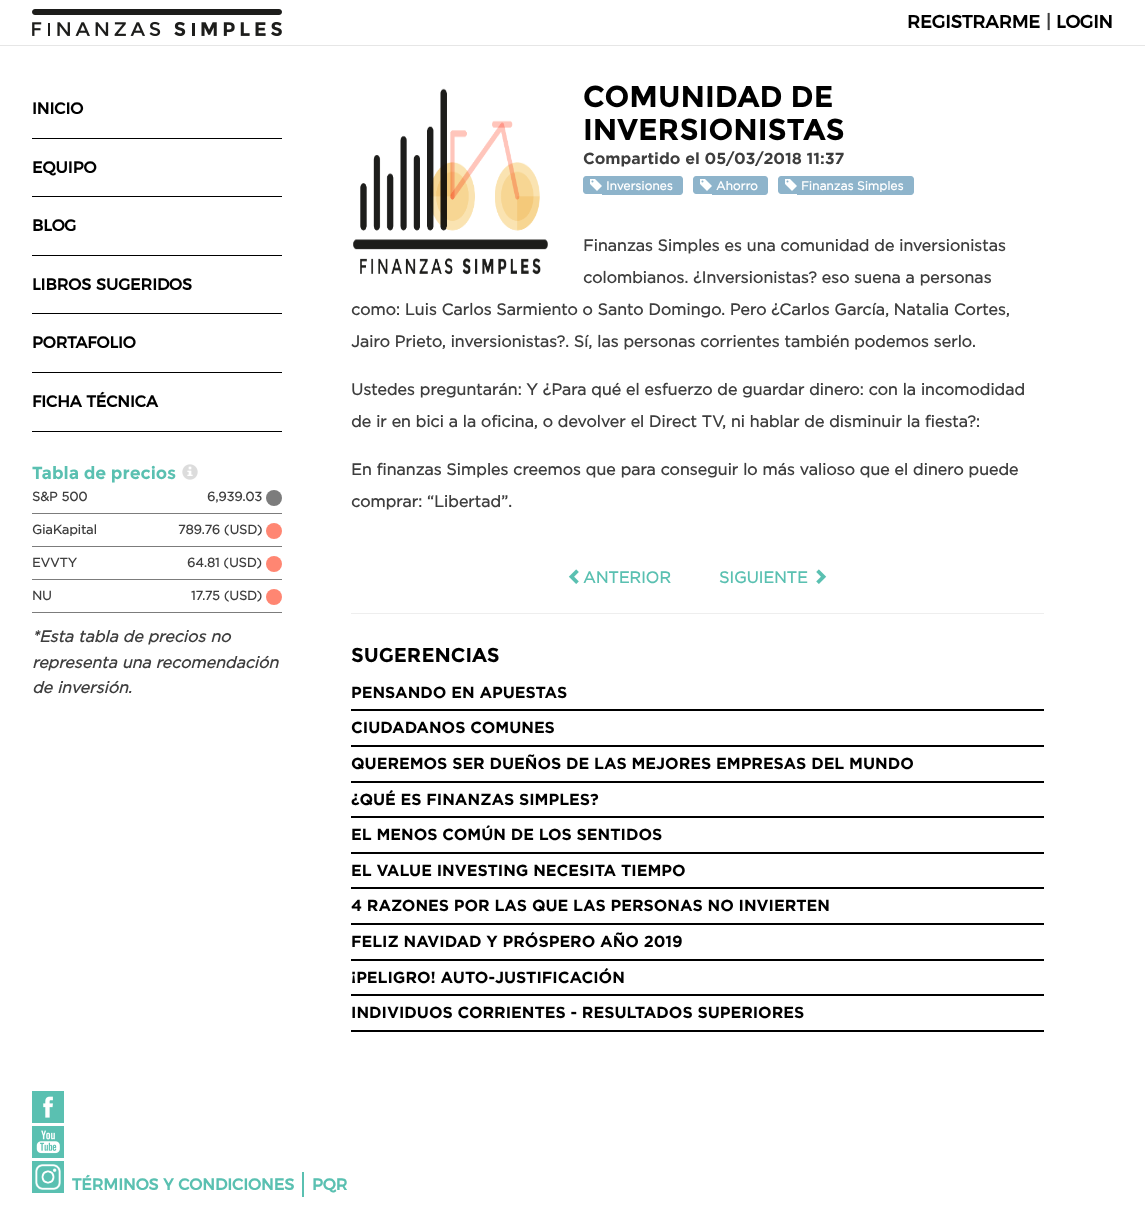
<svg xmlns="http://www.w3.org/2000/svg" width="1145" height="1226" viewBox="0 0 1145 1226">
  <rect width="100%" height="100%" fill="#ffffff"/>
  <rect x="0" y="45" width="1145" height="1" fill="#e6e6e6"/>
  <image x="32" y="9" width="250" height="27" href="img1.png"/>
  <text x="907" y="28" font-family="'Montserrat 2'" font-size="18" font-weight="bold" fill="#000000">REGISTRARME</text>
  <text x="1046" y="28" font-family="'Montserrat 2'" font-size="18" font-weight="bold" fill="#3e3e3e">|</text>
  <text x="1056" y="28" font-family="'Montserrat 2'" font-size="18" font-weight="bold" fill="#000000">LOGIN</text>
  <rect x="32" y="138" width="250" height="1" fill="#000000"/>
  <text x="32" y="114" font-family="'Montserrat 2'" font-size="16" font-weight="bold" fill="#000000">INICIO</text>
  <rect x="32" y="196" width="250" height="1" fill="#000000"/>
  <text x="32" y="173" font-family="'Montserrat 2'" font-size="16" font-weight="bold" fill="#000000">EQUIPO</text>
  <rect x="32" y="255" width="250" height="1" fill="#000000"/>
  <text x="32" y="231" font-family="'Montserrat 2'" font-size="16" font-weight="bold" fill="#000000">BLOG</text>
  <rect x="32" y="313" width="250" height="1" fill="#000000"/>
  <text x="32" y="290" font-family="'Montserrat 2'" font-size="16" font-weight="bold" fill="#000000">LIBROS SUGERIDOS</text>
  <rect x="32" y="372" width="250" height="1" fill="#000000"/>
  <text x="32" y="348" font-family="'Montserrat 2'" font-size="16" font-weight="bold" fill="#000000">PORTAFOLIO</text>
  <rect x="32" y="431" width="250" height="1" fill="#000000"/>
  <text x="32" y="407" font-family="'Montserrat 2'" font-size="16" font-weight="bold" fill="#000000">FICHA TÉCNICA</text>
  <text x="32" y="479" font-family="Montserrat" font-size="17.5" font-weight="bold" fill="#5ac0b1">Tabla de precios</text>
  <image x="182" y="464" width="16" height="16" href="img2.png"/>
  <rect x="32" y="513" width="250" height="1" fill="#7c7c7c"/>
  <text x="32" y="501" font-family="Gotham" font-size="12.75" font-weight="bold" fill="#3e3e3e">S&amp;P 500</text>
  <text x="207" y="501" font-family="Gotham" font-size="12.75" font-weight="bold" fill="#3e3e3e">6,939.03</text>
  <circle cx="274" cy="498" r="8" fill="#7c7c7c"/>
  <rect x="32" y="546" width="250" height="1" fill="#7c7c7c"/>
  <text x="32" y="534" font-family="Gotham" font-size="12.75" font-weight="bold" fill="#3e3e3e">GiaKapital</text>
  <text x="178" y="534" font-family="Gotham" font-size="12.75" font-weight="bold" fill="#3e3e3e">789.76 (USD)</text>
  <circle cx="274" cy="531" r="8" fill="#ff8672"/>
  <rect x="32" y="579" width="250" height="1" fill="#7c7c7c"/>
  <text x="32" y="567" font-family="Gotham" font-size="12.75" font-weight="bold" fill="#3e3e3e">EVVTY</text>
  <text x="187" y="567" font-family="Gotham" font-size="12.75" font-weight="bold" fill="#3e3e3e">64.81 (USD)</text>
  <circle cx="274" cy="564" r="8" fill="#ff8672"/>
  <rect x="32" y="612" width="250" height="1" fill="#7c7c7c"/>
  <text x="32" y="600" font-family="Gotham" font-size="12.75" font-weight="bold" fill="#3e3e3e">NU</text>
  <text x="191" y="600" font-family="Gotham" font-size="12.75" font-weight="bold" fill="#3e3e3e">17.75 (USD)</text>
  <circle cx="274" cy="597" r="8" fill="#ff8672"/>
  <text x="32" y="642" font-family="Gotham" font-size="16" font-weight="bold" font-style="italic" fill="#3e3e3e">*Esta tabla de precios no</text>
  <text x="32" y="668" font-family="Gotham" font-size="16" font-weight="bold" font-style="italic" fill="#3e3e3e">representa una recomendación</text>
  <text x="32" y="693" font-family="Gotham" font-size="16" font-weight="bold" font-style="italic" fill="#3e3e3e">de inversión.</text>
  <image x="353" y="88" width="195" height="187" href="img3.png"/>
  <text x="583" y="107" font-family="Montserrat" font-size="30" font-weight="bold" fill="#000000">COMUNIDAD DE</text>
  <text x="583" y="140" font-family="Montserrat" font-size="30" font-weight="bold" fill="#000000">INVERSIONISTAS</text>
  <text x="583" y="164" font-family="'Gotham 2'" font-size="16" font-weight="bold" fill="#3e3e3e">Compartido el 05/03/2018 11:37</text>
  <path d="M586 176H602V194H586C584.5 194 583 192.5 583 191V179C583 177.5 584.5 176 586 176Z" fill="#8eb4cb"/>
  <path d="M602 176H680C681.5 176 683 177.5 683 179V192C683 193.5 681.5 195 680 195H602Z" fill="#8eb4cb"/>
  <image x="590" y="179" width="12" height="12" href="img4.png"/>
  <text x="606" y="190" font-family="Gotham" font-size="12" font-weight="bold" fill="#ffffff">Inversiones</text>
  <path d="M696 176H712V194H696C694.5 194 693 192.5 693 191V179C693 177.5 694.5 176 696 176Z" fill="#8eb4cb"/>
  <path d="M712 176H765C766.5 176 768 177.5 768 179V192C768 193.5 766.5 195 765 195H712Z" fill="#8eb4cb"/>
  <image x="700" y="179" width="12" height="12" href="img4.png"/>
  <text x="716" y="190" font-family="Gotham" font-size="12" font-weight="bold" fill="#ffffff">Ahorro</text>
  <path d="M781 176H797V194H781C779.5 194 778 192.5 778 191V179C778 177.5 779.5 176 781 176Z" fill="#8eb4cb"/>
  <path d="M797 176H911C912.5 176 914 177.5 914 179V192C914 193.5 912.5 195 911 195H797Z" fill="#8eb4cb"/>
  <image x="785" y="179" width="12" height="12" href="img4.png"/>
  <text x="801" y="190" font-family="Gotham" font-size="12" font-weight="bold" fill="#ffffff">Finanzas Simples</text>
  <text x="583" y="251" font-family="Gotham" font-size="16" font-weight="bold" fill="#3e3e3e">Finanzas Simples es una comunidad de inversionistas</text>
  <text x="583" y="283" font-family="Gotham" font-size="16" font-weight="bold" fill="#3e3e3e">colombianos. ¿Inversionistas? eso suena a personas</text>
  <text x="351" y="315" font-family="Gotham" font-size="16" font-weight="bold" fill="#3e3e3e">como: Luis Carlos Sarmiento o Santo Domingo. Pero ¿Carlos García, Natalia Cortes,</text>
  <text x="351" y="347" font-family="Gotham" font-size="16" font-weight="bold" fill="#3e3e3e">Jairo Prieto, inversionistas?. Sí, las personas corrientes también podemos serlo.</text>
  <text x="351" y="395" font-family="Gotham" font-size="16" font-weight="bold" fill="#3e3e3e">Ustedes preguntarán: Y ¿Para qué el esfuerzo de guardar dinero: con la incomodidad</text>
  <text x="351" y="427" font-family="Gotham" font-size="16" font-weight="bold" fill="#3e3e3e">de ir en bici a la oficina, o devolver el Direct TV, ni hablar de disminuir la fiesta?:</text>
  <text x="351" y="475" font-family="Gotham" font-size="16" font-weight="bold" fill="#3e3e3e">En finanzas Simples creemos que para conseguir lo más valioso que el dinero puede</text>
  <text x="351" y="507" font-family="Gotham" font-size="16" font-weight="bold" fill="#3e3e3e">comprar: “Libertad”.</text>
  <image x="568" y="569" width="11" height="15" href="img5.png"/>
  <text x="583" y="583" font-family="Gotham" font-size="16" font-weight="bold" fill="#5ac0b1">ANTERIOR</text>
  <text x="719" y="583" font-family="Gotham" font-size="16" font-weight="bold" fill="#5ac0b1">SIGUIENTE</text>
  <image x="816" y="569" width="11" height="15" href="img6.png"/>
  <rect x="351" y="613" width="693" height="1" fill="#eeeeee"/>
  <text x="351" y="662" font-family="Montserrat" font-size="20" font-weight="bold" fill="#000000">SUGERENCIAS</text>
  <rect x="351" y="709" width="693" height="2" fill="#000000"/>
  <text x="351" y="698" font-family="'Gotham 2'" font-size="16" font-weight="bold" fill="#000000">PENSANDO EN APUESTAS</text>
  <rect x="351" y="745" width="693" height="2" fill="#000000"/>
  <text x="351" y="733" font-family="'Gotham 2'" font-size="16" font-weight="bold" fill="#000000">CIUDADANOS COMUNES</text>
  <rect x="351" y="781" width="693" height="2" fill="#000000"/>
  <text x="351" y="769" font-family="'Gotham 2'" font-size="16" font-weight="bold" fill="#000000">QUEREMOS SER DUEÑOS DE LAS MEJORES EMPRESAS DEL MUNDO</text>
  <rect x="351" y="816" width="693" height="2" fill="#000000"/>
  <text x="351" y="805" font-family="'Gotham 2'" font-size="16" font-weight="bold" fill="#000000">¿QUÉ ES FINANZAS SIMPLES?</text>
  <rect x="351" y="852" width="693" height="2" fill="#000000"/>
  <text x="351" y="840" font-family="'Gotham 2'" font-size="16" font-weight="bold" fill="#000000">EL MENOS COMÚN DE LOS SENTIDOS</text>
  <rect x="351" y="887" width="693" height="2" fill="#000000"/>
  <text x="351" y="876" font-family="'Gotham 2'" font-size="16" font-weight="bold" fill="#000000">EL VALUE INVESTING NECESITA TIEMPO</text>
  <rect x="351" y="923" width="693" height="2" fill="#000000"/>
  <text x="351" y="911" font-family="'Gotham 2'" font-size="16" font-weight="bold" fill="#000000">4 RAZONES POR LAS QUE LAS PERSONAS NO INVIERTEN</text>
  <rect x="351" y="959" width="693" height="2" fill="#000000"/>
  <text x="351" y="947" font-family="'Gotham 2'" font-size="16" font-weight="bold" fill="#000000">FELIZ NAVIDAD Y PRÓSPERO AÑO 2019</text>
  <rect x="351" y="994" width="693" height="2" fill="#000000"/>
  <text x="351" y="983" font-family="'Gotham 2'" font-size="16" font-weight="bold" fill="#000000">¡PELIGRO! AUTO-JUSTIFICACIÓN</text>
  <rect x="351" y="1030" width="693" height="2" fill="#000000"/>
  <text x="351" y="1018" font-family="'Gotham 2'" font-size="16" font-weight="bold" fill="#000000">INDIVIDUOS CORRIENTES - RESULTADOS SUPERIORES</text>
  <image x="32" y="1091" width="32" height="32" href="img7.png"/>
  <image x="32" y="1126" width="32" height="32" href="img8.png"/>
  <rect x="32" y="1161" width="32" height="32" fill="#5ac0b1"/>
  <image x="35" y="1164" width="26" height="26" href="img9.png"/>
  <rect x="302" y="1172" width="2" height="25" fill="#5ac0b1"/>
  <text x="72" y="1190" font-family="'Montserrat 2'" font-size="16" font-weight="bold" fill="#5ac0b1">TÉRMINOS Y CONDICIONES</text>
  <text x="312" y="1190" font-family="'Montserrat 2'" font-size="16" font-weight="bold" fill="#5ac0b1">PQR</text>
</svg>
